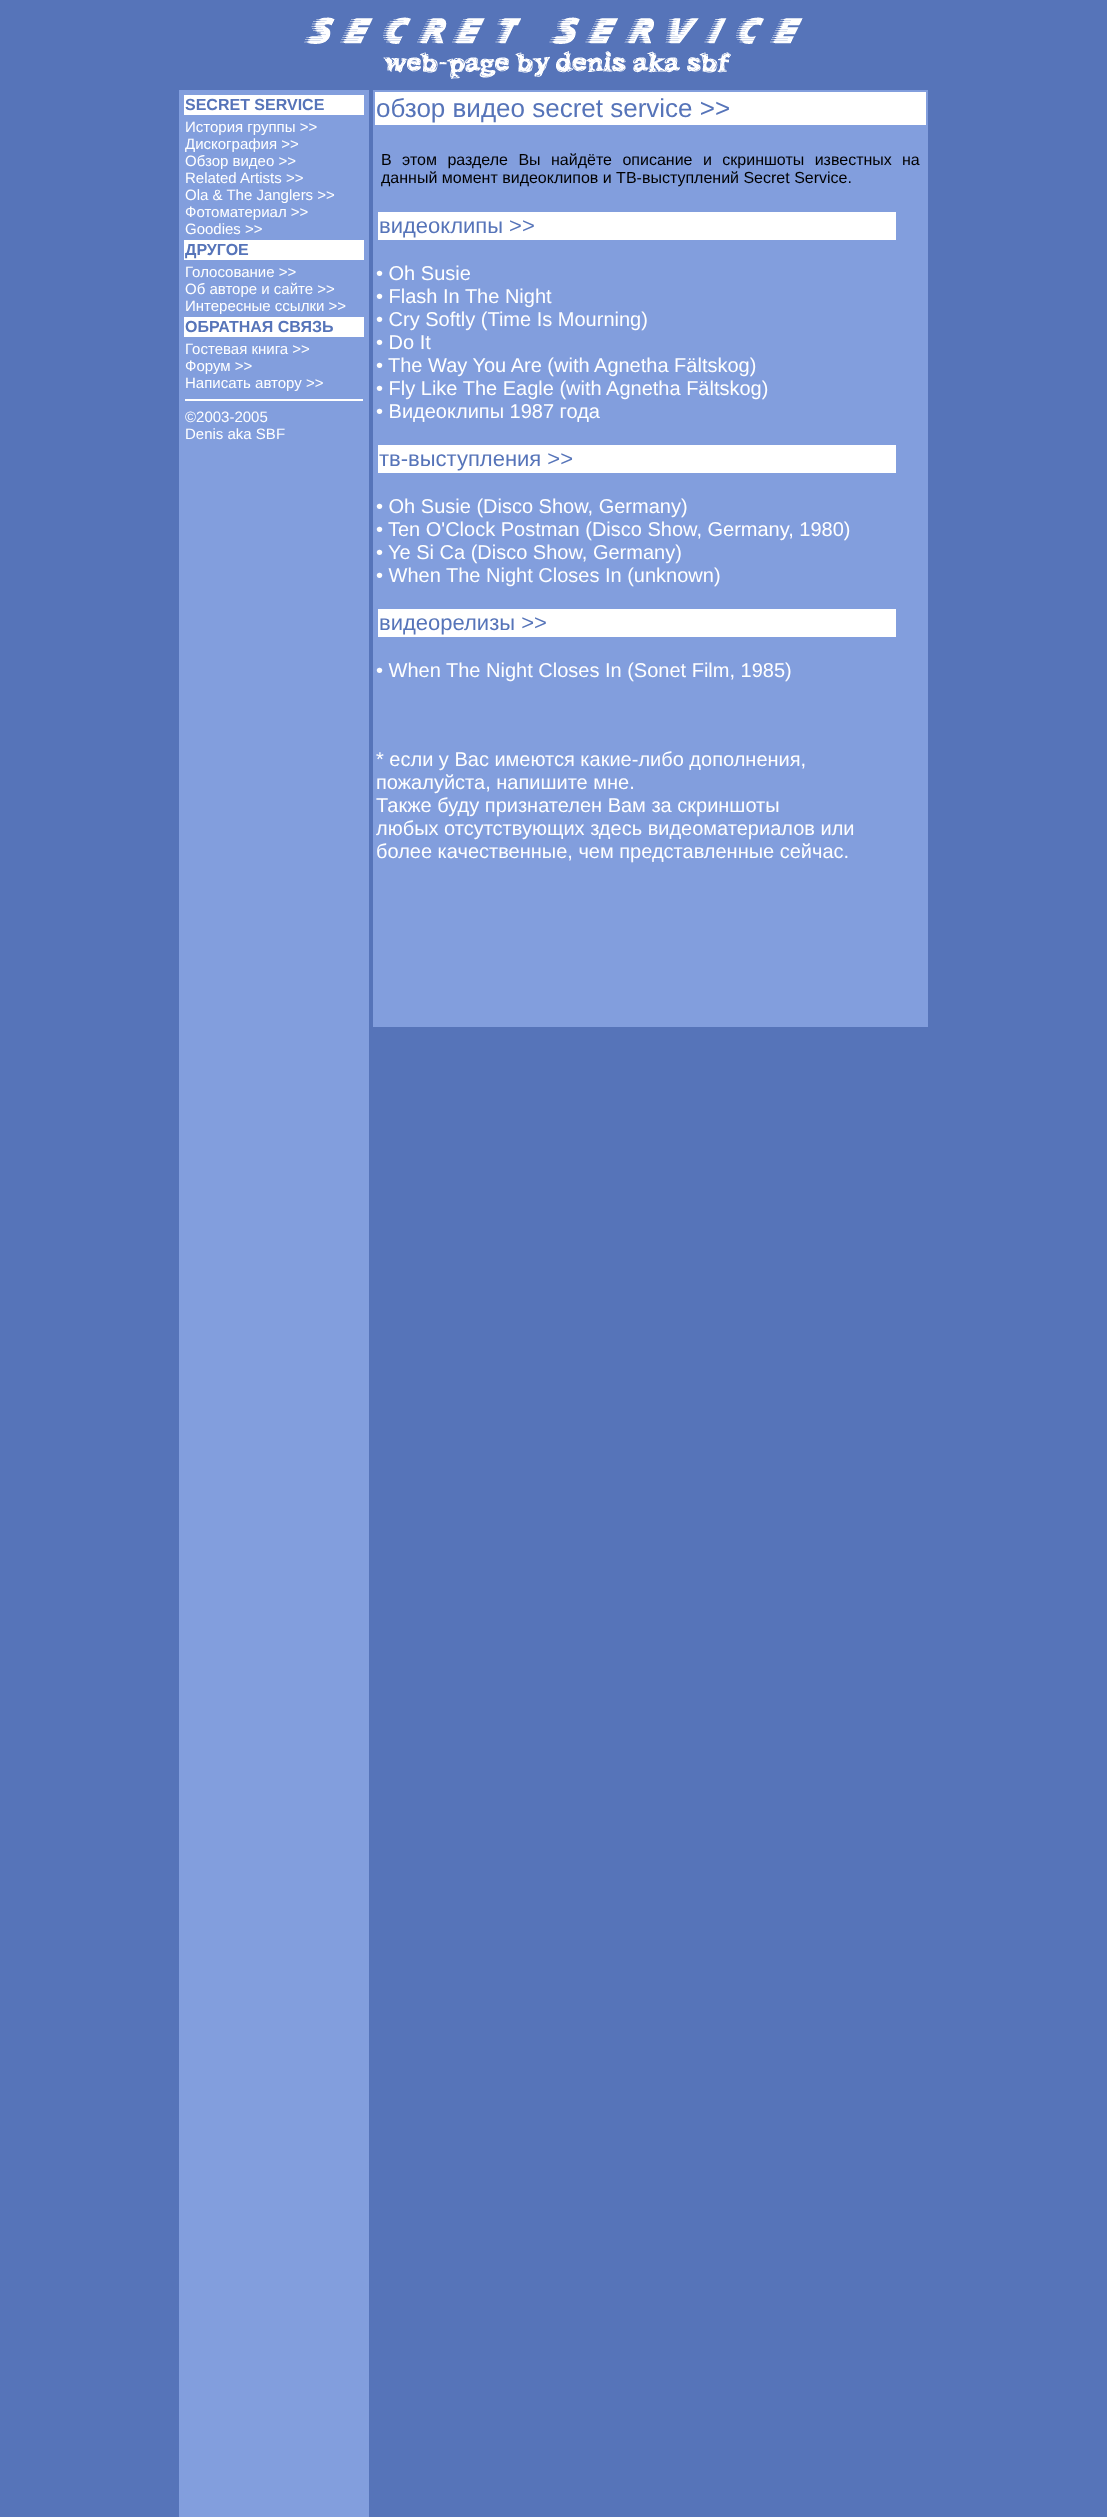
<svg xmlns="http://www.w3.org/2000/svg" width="1107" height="2517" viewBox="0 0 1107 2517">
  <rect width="100%" height="100%" fill="#5674b9"/>
  <image x="304" y="17" width="499" height="62" href="img1.png"/>
  <rect x="179" y="90" width="190" height="2427" fill="#829edd"/>
  <rect x="184" y="95" width="180" height="20" fill="#ffffff"/>
  <text x="185" y="110" font-family="Liberation Sans" font-size="16" font-weight="bold" fill="#5674b9">SECRET SERVICE</text>
  <text x="185" y="132" font-family="Liberation Sans" font-size="15" fill="#ffffff">История группы &gt;&gt;</text>
  <text x="185" y="149" font-family="Liberation Sans" font-size="15" fill="#ffffff">Дискография &gt;&gt;</text>
  <text x="185" y="166" font-family="Liberation Sans" font-size="15" fill="#ffffff">Обзор видео &gt;&gt;</text>
  <text x="185" y="183" font-family="Liberation Sans" font-size="15" fill="#ffffff">Related Artists &gt;&gt;</text>
  <text x="185" y="200" font-family="Liberation Sans" font-size="15" fill="#ffffff">Ola &amp; The Janglers &gt;&gt;</text>
  <text x="185" y="217" font-family="Liberation Sans" font-size="15" fill="#ffffff">Фотоматериал &gt;&gt;</text>
  <text x="185" y="234" font-family="Liberation Sans" font-size="15" fill="#ffffff">Goodies &gt;&gt;</text>
  <rect x="184" y="240" width="180" height="20" fill="#ffffff"/>
  <text x="185" y="255" font-family="Liberation Sans" font-size="16" font-weight="bold" fill="#5674b9">ДРУГОЕ</text>
  <text x="185" y="277" font-family="Liberation Sans" font-size="15" fill="#ffffff">Голосование &gt;&gt;</text>
  <text x="185" y="294" font-family="Liberation Sans" font-size="15" fill="#ffffff">Об авторе и сайте &gt;&gt;</text>
  <text x="185" y="311" font-family="Liberation Sans" font-size="15" fill="#ffffff">Интересные ссылки &gt;&gt;</text>
  <rect x="184" y="317" width="180" height="20" fill="#ffffff"/>
  <text x="185" y="332" font-family="Liberation Sans" font-size="16" font-weight="bold" fill="#5674b9">ОБРАТНАЯ СВЯЗЬ</text>
  <text x="185" y="354" font-family="Liberation Sans" font-size="15" fill="#ffffff">Гостевая книга &gt;&gt;</text>
  <text x="185" y="371" font-family="Liberation Sans" font-size="15" fill="#ffffff">Форум &gt;&gt;</text>
  <text x="185" y="388" font-family="Liberation Sans" font-size="15" fill="#ffffff">Написать автору &gt;&gt;</text>
  <rect x="185" y="399" width="178" height="2" fill="#ffffff"/>
  <text x="185" y="422" font-family="Liberation Sans" font-size="15" fill="#ffffff">©2003-2005</text>
  <text x="185" y="439" font-family="Liberation Sans" font-size="15" fill="#ffffff">Denis aka SBF</text>
  <rect x="373" y="90" width="555" height="937" fill="#829edd"/>
  <rect x="375" y="92" width="551" height="33" fill="#ffffff"/>
  <text x="376" y="117" font-family="Liberation Sans" font-size="26" fill="#5674b9">обзор видео secret service &gt;&gt;</text>
  <text x="381" y="165" word-spacing="6" font-family="Liberation Sans" font-size="16" fill="#000000">В этом разделе Вы найдёте описание и скриншоты известных</text>
  <text x="902" y="165" font-family="Liberation Sans" font-size="16" fill="#000000">на</text>
  <text x="381" y="183" font-family="Liberation Sans" font-size="16" fill="#000000">данный момент видеоклипов и ТВ-выступлений Secret Service.</text>
  <rect x="378" y="212" width="518" height="28" fill="#ffffff"/>
  <text x="379" y="233" font-family="Liberation Sans" font-size="22" fill="#5674b9">видеоклипы &gt;&gt;</text>
  <text x="376" y="280" font-family="Liberation Sans" font-size="20" fill="#ffffff">• Oh Susie</text>
  <text x="376" y="303" font-family="Liberation Sans" font-size="20" fill="#ffffff">• Flash In The Night</text>
  <text x="376" y="326" font-family="Liberation Sans" font-size="20" fill="#ffffff">• Cry Softly (Time Is Mourning)</text>
  <text x="376" y="349" font-family="Liberation Sans" font-size="20" fill="#ffffff">• Do It</text>
  <text x="376" y="372" font-family="Liberation Sans" font-size="20" fill="#ffffff">•</text>
  <text x="388" y="372" font-family="Liberation Sans" font-size="20" fill="#ffffff">The Way You Are (with Agnetha Fältskog)</text>
  <text x="376" y="395" font-family="Liberation Sans" font-size="20" fill="#ffffff">• Fly Like The Eagle (with Agnetha Fältskog)</text>
  <text x="376" y="418" font-family="Liberation Sans" font-size="20" fill="#ffffff">• Видеоклипы 1987 года</text>
  <rect x="378" y="445" width="518" height="28" fill="#ffffff"/>
  <text x="379" y="466" font-family="Liberation Sans" font-size="22" fill="#5674b9">тв-выступления &gt;&gt;</text>
  <text x="376" y="513" font-family="Liberation Sans" font-size="20" fill="#ffffff">• Oh Susie (Disco Show, Germany)</text>
  <text x="376" y="536" font-family="Liberation Sans" font-size="20" fill="#ffffff">•</text>
  <text x="388" y="536" font-family="Liberation Sans" font-size="20" fill="#ffffff">Ten O'Clock Postman (Disco Show, Germany, 1980)</text>
  <text x="376" y="559" font-family="Liberation Sans" font-size="20" fill="#ffffff">•</text>
  <text x="388" y="559" font-family="Liberation Sans" font-size="20" fill="#ffffff">Ye Si Ca (Disco Show, Germany)</text>
  <text x="376" y="582" font-family="Liberation Sans" font-size="20" fill="#ffffff">• When The Night Closes In (unknown)</text>
  <rect x="378" y="609" width="518" height="28" fill="#ffffff"/>
  <text x="379" y="630" font-family="Liberation Sans" font-size="22" fill="#5674b9">видеорелизы &gt;&gt;</text>
  <text x="376" y="677" font-family="Liberation Sans" font-size="20" fill="#ffffff">• When The Night Closes In (Sonet Film, 1985)</text>
  <text x="376" y="766" font-family="Liberation Sans" font-size="20" fill="#ffffff">* если у Вас имеются какие-либо дополнения,</text>
  <text x="376" y="789" font-family="Liberation Sans" font-size="20" fill="#ffffff">пожалуйста, напишите мне.</text>
  <text x="376" y="812" font-family="Liberation Sans" font-size="20" fill="#ffffff">Также буду признателен Вам за скриншоты</text>
  <text x="376" y="835" font-family="Liberation Sans" font-size="20" fill="#ffffff">любых отсутствующих здесь видеоматериалов или</text>
  <text x="376" y="858" font-family="Liberation Sans" font-size="20" fill="#ffffff">более качественные, чем представленные сейчас.</text>
</svg>
